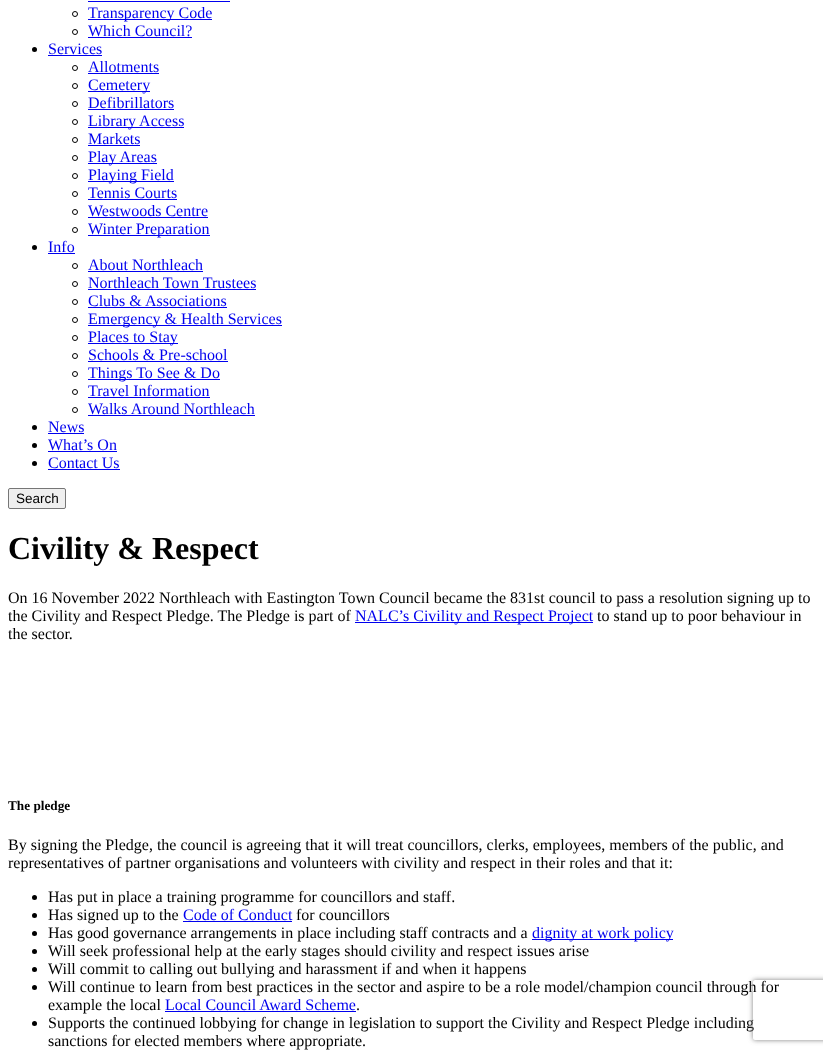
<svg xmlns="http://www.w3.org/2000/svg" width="823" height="1054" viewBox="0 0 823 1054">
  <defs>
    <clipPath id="clip1"><path d="M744 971H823V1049H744ZM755 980H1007C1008 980 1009 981 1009 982V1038C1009 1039 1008 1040 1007 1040H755C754 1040 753 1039 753 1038V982C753 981 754 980 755 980Z" clip-rule="evenodd"/></clipPath>
    <filter id="blur1" x="-50%" y="-200%" width="200%" height="500%"><feGaussianBlur stdDeviation="2.5"/></filter>
  </defs>
  <rect width="100%" height="100%" fill="#ffffff"/>
  <rect x="88" y="1" width="142" height="1" fill="#0000ee"/>
  <circle cx="75" cy="14" r="2.5" fill="none" stroke="#000000"/>
  <rect x="88" y="19" width="124" height="1" fill="#0000ee"/>
  <text x="88" y="18" font-family="Liberation Serif" font-size="16" fill="#0000ee">Transparency Code</text>
  <circle cx="75" cy="32" r="2.5" fill="none" stroke="#000000"/>
  <text x="88" y="36" font-family="Liberation Serif" font-size="16" fill="#0000ee">Which Council?</text>
  <rect x="88" y="37" width="104" height="1" fill="#0000ee"/>
  <circle cx="34.5" cy="49.5" r="2.5" fill="#000000"/>
  <text x="48" y="54" font-family="Liberation Serif" font-size="16" fill="#0000ee">Services</text>
  <rect x="48" y="55" width="54" height="1" fill="#0000ee"/>
  <circle cx="75" cy="68" r="2.5" fill="none" stroke="#000000"/>
  <text x="88" y="72" font-family="Liberation Serif" font-size="16" fill="#0000ee">Allotments</text>
  <rect x="88" y="73" width="71" height="1" fill="#0000ee"/>
  <circle cx="75" cy="86" r="2.5" fill="none" stroke="#000000"/>
  <rect x="88" y="91" width="62" height="1" fill="#0000ee"/>
  <text x="88" y="90" font-family="Liberation Serif" font-size="16" fill="#0000ee">Cemetery</text>
  <circle cx="75" cy="104" r="2.5" fill="none" stroke="#000000"/>
  <text x="88" y="108" font-family="Liberation Serif" font-size="16" fill="#0000ee">Defibrillators</text>
  <rect x="88" y="109" width="86" height="1" fill="#0000ee"/>
  <circle cx="75" cy="122" r="2.5" fill="none" stroke="#000000"/>
  <rect x="88" y="127" width="96" height="1" fill="#0000ee"/>
  <text x="88" y="126" font-family="Liberation Serif" font-size="16" fill="#0000ee">Library Access</text>
  <circle cx="75" cy="140" r="2.5" fill="none" stroke="#000000"/>
  <text x="88" y="144" font-family="Liberation Serif" font-size="16" fill="#0000ee">Markets</text>
  <rect x="88" y="145" width="52" height="1" fill="#0000ee"/>
  <circle cx="75" cy="158" r="2.5" fill="none" stroke="#000000"/>
  <rect x="88" y="163" width="69" height="1" fill="#0000ee"/>
  <text x="88" y="162" font-family="Liberation Serif" font-size="16" fill="#0000ee">Play Areas</text>
  <circle cx="75" cy="176" r="2.5" fill="none" stroke="#000000"/>
  <rect x="88" y="181" width="86" height="1" fill="#0000ee"/>
  <text x="88" y="180" font-family="Liberation Serif" font-size="16" fill="#0000ee">Playing Field</text>
  <circle cx="75" cy="194" r="2.5" fill="none" stroke="#000000"/>
  <text x="88" y="198" font-family="Liberation Serif" font-size="16" fill="#0000ee">Tennis Courts</text>
  <rect x="88" y="199" width="89" height="1" fill="#0000ee"/>
  <circle cx="75" cy="212" r="2.5" fill="none" stroke="#000000"/>
  <text x="88" y="216" font-family="Liberation Serif" font-size="16" fill="#0000ee">Westwoods Centre</text>
  <rect x="88" y="217" width="120" height="1" fill="#0000ee"/>
  <circle cx="75" cy="230" r="2.5" fill="none" stroke="#000000"/>
  <rect x="88" y="235" width="122" height="1" fill="#0000ee"/>
  <text x="88" y="234" font-family="Liberation Serif" font-size="16" fill="#0000ee">Winter Preparation</text>
  <circle cx="34.5" cy="247.5" r="2.5" fill="#000000"/>
  <text x="48" y="252" font-family="Liberation Serif" font-size="16" fill="#0000ee">Info</text>
  <rect x="48" y="253" width="27" height="1" fill="#0000ee"/>
  <circle cx="75" cy="266" r="2.5" fill="none" stroke="#000000"/>
  <text x="88" y="270" font-family="Liberation Serif" font-size="16" fill="#0000ee">About Northleach</text>
  <rect x="88" y="271" width="115" height="1" fill="#0000ee"/>
  <circle cx="75" cy="284" r="2.5" fill="none" stroke="#000000"/>
  <text x="88" y="288" font-family="Liberation Serif" font-size="16" fill="#0000ee">Northleach Town Trustees</text>
  <rect x="88" y="289" width="168" height="1" fill="#0000ee"/>
  <circle cx="75" cy="302" r="2.5" fill="none" stroke="#000000"/>
  <text x="88" y="306" font-family="Liberation Serif" font-size="16" fill="#0000ee">Clubs &amp; Associations</text>
  <rect x="88" y="307" width="139" height="1" fill="#0000ee"/>
  <circle cx="75" cy="320" r="2.5" fill="none" stroke="#000000"/>
  <rect x="88" y="325" width="194" height="1" fill="#0000ee"/>
  <text x="88" y="324" font-family="Liberation Serif" font-size="16" fill="#0000ee">Emergency &amp; Health Services</text>
  <circle cx="75" cy="338" r="2.5" fill="none" stroke="#000000"/>
  <rect x="88" y="343" width="90" height="1" fill="#0000ee"/>
  <text x="88" y="342" font-family="Liberation Serif" font-size="16" fill="#0000ee">Places to Stay</text>
  <circle cx="75" cy="356" r="2.5" fill="none" stroke="#000000"/>
  <text x="88" y="360" font-family="Liberation Serif" font-size="16" fill="#0000ee">Schools &amp; Pre-school</text>
  <rect x="88" y="361" width="140" height="1" fill="#0000ee"/>
  <circle cx="75" cy="374" r="2.5" fill="none" stroke="#000000"/>
  <rect x="88" y="379" width="132" height="1" fill="#0000ee"/>
  <text x="88" y="378" font-family="Liberation Serif" font-size="16" fill="#0000ee">Things To See &amp; Do</text>
  <circle cx="75" cy="392" r="2.5" fill="none" stroke="#000000"/>
  <text x="88" y="396" font-family="Liberation Serif" font-size="16" fill="#0000ee">Travel Information</text>
  <rect x="88" y="397" width="122" height="1" fill="#0000ee"/>
  <circle cx="75" cy="410" r="2.5" fill="none" stroke="#000000"/>
  <text x="88" y="414" font-family="Liberation Serif" font-size="16" fill="#0000ee">Walks Around Northleach</text>
  <rect x="88" y="415" width="167" height="1" fill="#0000ee"/>
  <circle cx="34.5" cy="427.5" r="2.5" fill="#000000"/>
  <text x="48" y="432" font-family="Liberation Serif" font-size="16" fill="#0000ee">News</text>
  <rect x="48" y="433" width="36" height="1" fill="#0000ee"/>
  <circle cx="34.5" cy="445.5" r="2.5" fill="#000000"/>
  <text x="48" y="450" font-family="Liberation Serif" font-size="16" fill="#0000ee">What’s On</text>
  <rect x="48" y="451" width="69" height="1" fill="#0000ee"/>
  <circle cx="34.5" cy="463.5" r="2.5" fill="#000000"/>
  <text x="48" y="468" font-family="Liberation Serif" font-size="16" fill="#0000ee">Contact Us</text>
  <rect x="48" y="469" width="72" height="1" fill="#0000ee"/>
  <rect x="8.5" y="488.5" width="57" height="20" rx="1.5" fill="#efefef" stroke="#767676"/>
  <text x="16" y="503" font-family="Liberation Sans" font-size="13.5" fill="#000000">Search</text>
  <text x="8" y="559" font-family="Liberation Serif" font-size="32" font-weight="bold" fill="#000000">Civility &amp; Respect</text>
  <text x="8" y="603" font-family="Liberation Serif" font-size="16" fill="#000000">On 16 November 2022 Northleach with Eastington Town Council became the 831st council to pass a resolution signing up to</text>
  <text x="8" y="621" font-family="Liberation Serif" font-size="16" fill="#000000">the Civility and Respect Pledge. The Pledge is part of</text>
  <rect x="355" y="622" width="238" height="1" fill="#0000ee"/>
  <text x="355" y="621" font-family="Liberation Serif" font-size="16" fill="#0000ee">NALC’s Civility and Respect Project</text>
  <text x="597" y="621" font-family="Liberation Serif" font-size="16" fill="#000000">to stand up to poor behaviour in</text>
  <text x="8" y="639" font-family="Liberation Serif" font-size="16" fill="#000000">the sector.</text>
  <text x="8" y="810" font-family="Liberation Serif" font-size="13.25" font-weight="bold" fill="#000000">The pledge</text>
  <text x="8" y="850" font-family="Liberation Serif" font-size="16" fill="#000000">By signing the Pledge, the council is agreeing that it will treat councillors, clerks, employees, members of the public, and</text>
  <text x="8" y="868" font-family="Liberation Serif" font-size="16" fill="#000000">representatives of partner organisations and volunteers with civility and respect in their roles and that it:</text>
  <circle cx="34.5" cy="897.5" r="2.5" fill="#000000"/>
  <text x="48" y="902" font-family="Liberation Serif" font-size="16" fill="#000000">Has put in place a training programme for councillors and staff.</text>
  <circle cx="34.5" cy="915.5" r="2.5" fill="#000000"/>
  <text x="48" y="920" font-family="Liberation Serif" font-size="16" fill="#000000">Has signed up to the</text>
  <text x="183" y="920" font-family="Liberation Serif" font-size="16" fill="#0000ee">Code of Conduct</text>
  <rect x="183" y="921" width="109" height="1" fill="#0000ee"/>
  <text x="296" y="920" font-family="Liberation Serif" font-size="16" fill="#000000">for councillors</text>
  <circle cx="34.5" cy="933.5" r="2.5" fill="#000000"/>
  <text x="48" y="938" font-family="Liberation Serif" font-size="16" fill="#000000">Has good governance arrangements in place including staff contracts and a</text>
  <rect x="532" y="939" width="141" height="1" fill="#0000ee"/>
  <text x="532" y="938" font-family="Liberation Serif" font-size="16" fill="#0000ee">dignity at work policy</text>
  <circle cx="34.5" cy="951.5" r="2.5" fill="#000000"/>
  <text x="48" y="956" font-family="Liberation Serif" font-size="16" fill="#000000">Will seek professional help at the early stages should civility and respect issues arise</text>
  <circle cx="34.5" cy="969.5" r="2.5" fill="#000000"/>
  <text x="48" y="974" font-family="Liberation Serif" font-size="16" fill="#000000">Will commit to calling out bullying and harassment if and when it happens</text>
  <circle cx="34.5" cy="987.5" r="2.5" fill="#000000"/>
  <text x="48" y="992" font-family="Liberation Serif" font-size="16" fill="#000000">Will continue to learn from best practices in the sector and aspire to be a role model/champion council through for</text>
  <text x="48" y="1010" font-family="Liberation Serif" font-size="16" fill="#000000">example the local</text>
  <text x="165" y="1010" font-family="Liberation Serif" font-size="16" fill="#0000ee">Local Council Award Scheme</text>
  <rect x="165" y="1011" width="191" height="1" fill="#0000ee"/>
  <text x="356" y="1010" font-family="Liberation Serif" font-size="16" fill="#000000">.</text>
  <circle cx="34.5" cy="1023.5" r="2.5" fill="#000000"/>
  <text x="48" y="1028" font-family="Liberation Serif" font-size="16" fill="#000000">Supports the continued lobbying for change in legislation to support the Civility and Respect Pledge including</text>
  <text x="48" y="1046" font-family="Liberation Serif" font-size="16" fill="#000000">sanctions for elected members where appropriate.</text>
  <g clip-path="url(#clip1)">
    <rect x="753" y="980" width="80" height="60" rx="2" fill="#808080" filter="url(#blur1)"/>
  </g>
</svg>
